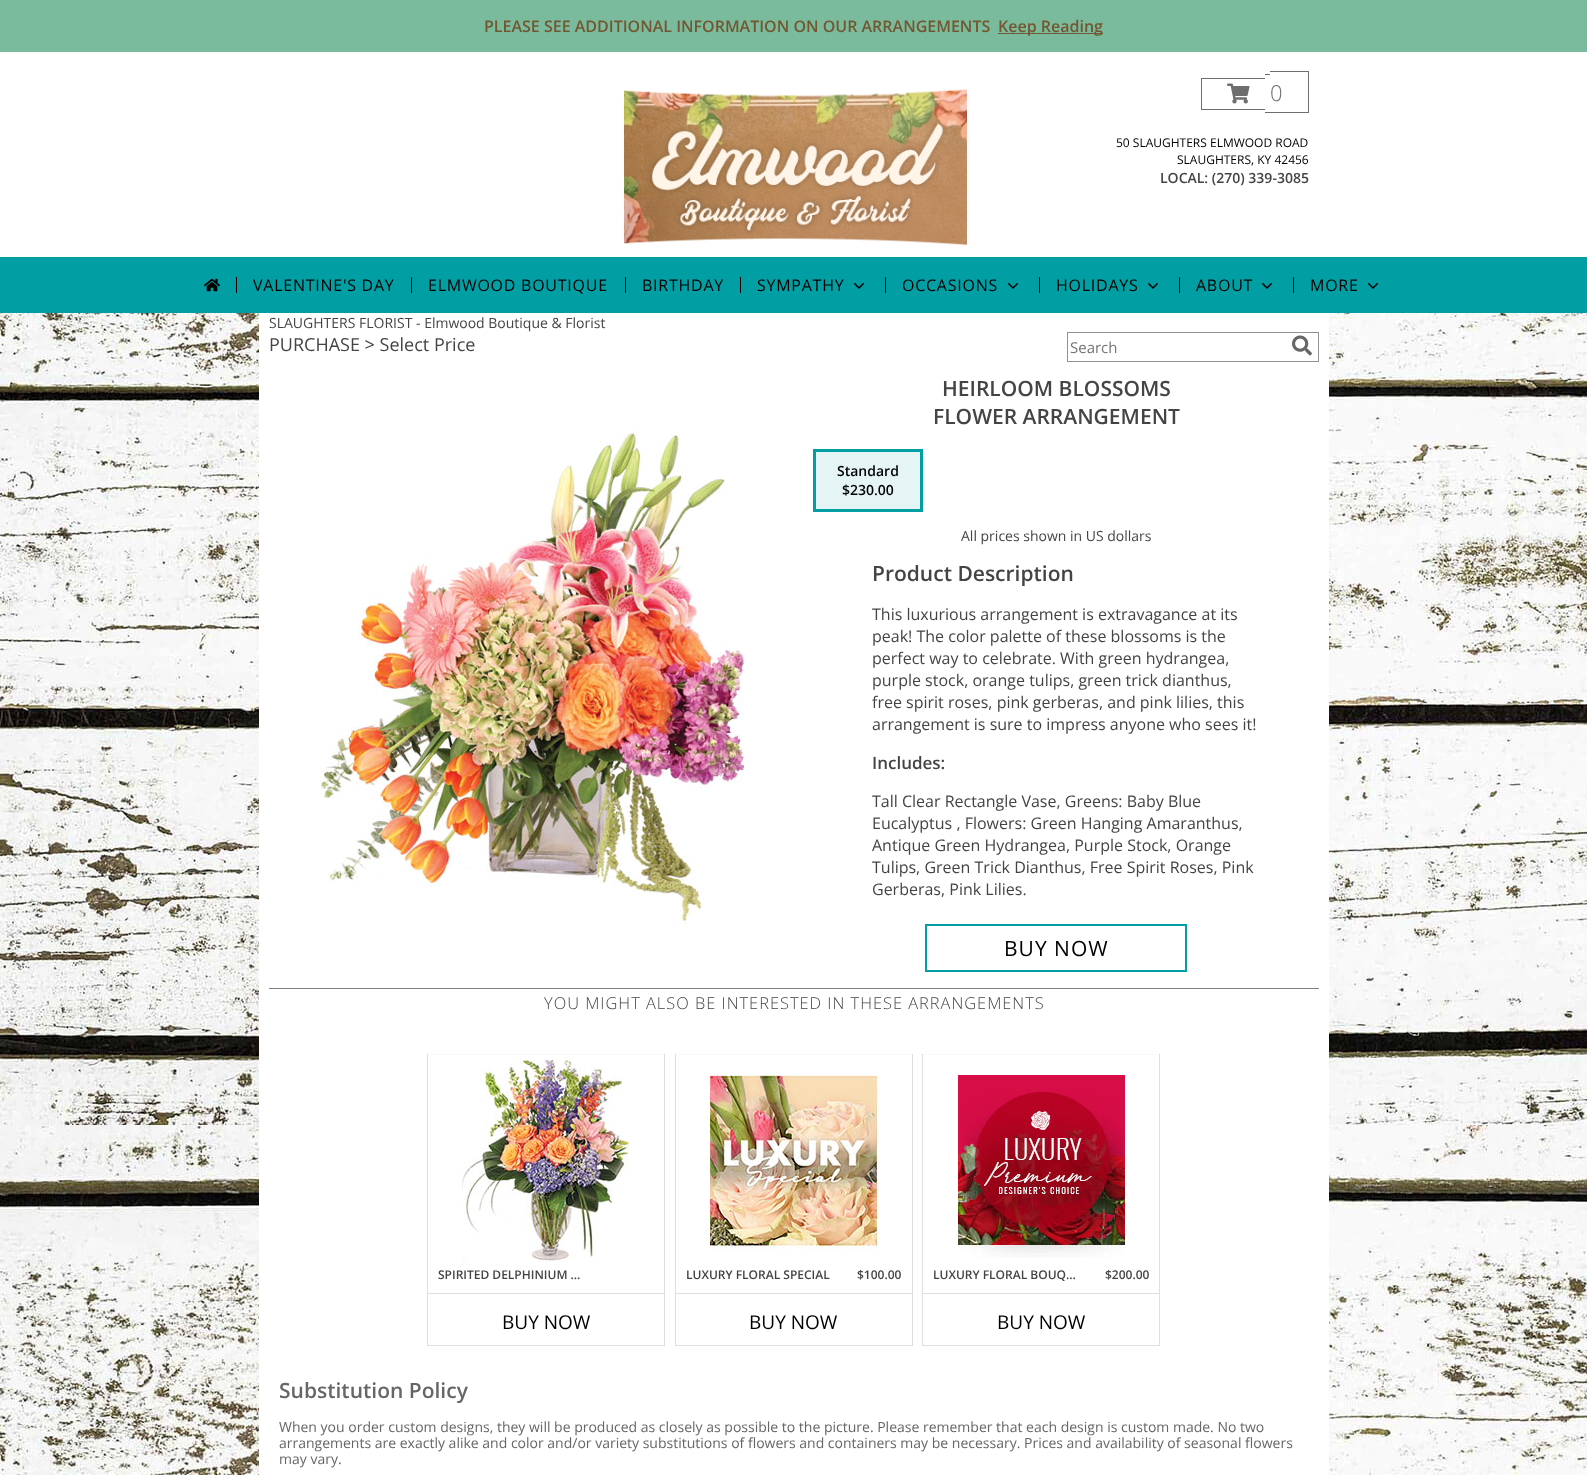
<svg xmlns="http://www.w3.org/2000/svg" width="1587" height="1475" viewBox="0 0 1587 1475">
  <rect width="100%" height="100%" fill="#ffffff"/>
  <image x="0" y="313" width="1587" height="1162" href="img1.png"/>
  <rect x="259" y="313" width="1070" height="1162" fill="#ffffff"/>
  <rect x="0" y="0" width="1587" height="52" fill="#7abb9d"/>
  <text x="484" y="32" font-family="Open Sans" font-size="16" font-weight="600" fill="#735730">PLEASE SEE ADDITIONAL INFORMATION ON OUR ARRANGEMENTS</text>
  <rect x="998" y="33" width="105" height="1" fill="#735730"/>
  <text x="998" y="32" font-family="Open Sans" font-size="16" font-weight="600" fill="#735730">Keep Reading</text>
  <image x="624" y="89" width="343" height="157" href="img2.png"/>
  <rect x="1201" y="78" width="64" height="1" fill="#6e6e6e"/>
  <rect x="1201" y="109" width="64" height="1" fill="#6e6e6e"/>
  <rect x="1201" y="78" width="1" height="32" fill="#6e6e6e"/>
  <rect x="1265" y="74" width="5" height="1" fill="#6e6e6e"/>
  <rect x="1265" y="112" width="5" height="1" fill="#6e6e6e"/>
  <rect x="1270" y="71" width="39" height="1" fill="#6e6e6e"/>
  <rect x="1308" y="71" width="1" height="42" fill="#6e6e6e"/>
  <rect x="1270" y="112" width="39" height="1" fill="#6e6e6e"/>
  <image x="1227" y="83" width="23" height="21" href="img3.png"/>
  <text x="1270" y="101" font-family="Open Sans" font-size="22" font-weight="300" fill="#6e6e6e">0</text>
  <text x="1116" y="147" font-family="Open Sans" font-size="12" fill="#000000">50 SLAUGHTERS ELMWOOD ROAD</text>
  <text x="1177" y="164" font-family="Open Sans" font-size="12" fill="#000000">SLAUGHTERS, KY 42456</text>
  <text x="1160" y="183" font-family="Open Sans" font-size="14" font-weight="600" fill="#444444">LOCAL: (270) 339-3085</text>
  <rect x="0" y="257" width="1587" height="56" fill="#019ea3"/>
  <image x="204" y="278" width="16" height="14" href="img4.png"/>
  <rect x="236" y="277" width="1" height="16" fill="#000000"/>
  <text x="253" y="291" font-family="Open Sans" font-size="16" letter-spacing="0.75" fill="#000000">VALENTINE'S DAY</text>
  <rect x="411" y="277" width="1" height="16" fill="#000000"/>
  <text x="428" y="291" font-family="Open Sans" font-size="16" letter-spacing="0.75" fill="#000000">ELMWOOD BOUTIQUE</text>
  <rect x="625" y="277" width="1" height="16" fill="#000000"/>
  <text x="642" y="291" font-family="Open Sans" font-size="16" letter-spacing="0.75" fill="#000000">BIRTHDAY</text>
  <rect x="740" y="277" width="1" height="16" fill="#000000"/>
  <text x="757" y="291" font-family="Open Sans" font-size="16" letter-spacing="0.75" fill="#000000">SYMPATHY</text>
  <image x="854" y="283" width="10" height="6" href="img5.png"/>
  <rect x="885" y="277" width="1" height="16" fill="#000000"/>
  <text x="902" y="291" font-family="Open Sans" font-size="16" letter-spacing="0.75" fill="#000000">OCCASIONS</text>
  <image x="1008" y="283" width="10" height="6" href="img5.png"/>
  <rect x="1039" y="277" width="1" height="16" fill="#000000"/>
  <text x="1056" y="291" font-family="Open Sans" font-size="16" letter-spacing="0.75" fill="#000000">HOLIDAYS</text>
  <image x="1148" y="283" width="10" height="6" href="img5.png"/>
  <rect x="1179" y="277" width="1" height="16" fill="#000000"/>
  <text x="1196" y="291" font-family="Open Sans" font-size="16" letter-spacing="0.75" fill="#000000">ABOUT</text>
  <image x="1262" y="283" width="10" height="6" href="img5.png"/>
  <rect x="1293" y="277" width="1" height="16" fill="#000000"/>
  <text x="1310" y="291" font-family="Open Sans" font-size="16" letter-spacing="0.75" fill="#000000">MORE</text>
  <image x="1368" y="283" width="10" height="6" href="img5.png"/>
  <text x="269" y="328" font-family="Open Sans" font-size="14" fill="#444444">SLAUGHTERS FLORIST - Elmwood Boutique &amp; Florist</text>
  <text x="269" y="351" font-family="Open Sans" font-size="18" fill="#444444">PURCHASE &gt; Select Price</text>
  <rect x="1067.5" y="332.5" width="251" height="29" fill="none" stroke="#919191"/>
  <text x="1070" y="353" font-family="Open Sans" font-size="15" fill="#757575">Search</text>
  <image x="1292" y="335" width="20" height="21" href="img6.png"/>
  <image x="319" y="431" width="425" height="496" href="img7.png"/>
  <text x="942" y="396" font-family="Open Sans" font-size="21" font-weight="600" fill="#444444">HEIRLOOM BLOSSOMS</text>
  <text x="933" y="424" font-family="Open Sans" font-size="21" font-weight="600" fill="#444444">FLOWER ARRANGEMENT</text>
  <rect x="814.5" y="450.5" width="107" height="60" fill="none" stroke="#019ea3" stroke-width="3"/>
  <rect x="816" y="452" width="104" height="57" fill="#e5f5f5"/>
  <text x="837" y="476" font-family="Open Sans" font-size="14" font-weight="600" fill="#000000">Standard</text>
  <text x="842" y="495" font-family="Open Sans" font-size="14" font-weight="600" fill="#000000">$230.00</text>
  <text x="961" y="541" font-family="Open Sans" font-size="14" fill="#444444">All prices shown in US dollars</text>
  <text x="872" y="581" font-family="Open Sans" font-size="21" font-weight="600" fill="#444444">Product Description</text>
  <text x="872" y="620" font-family="Open Sans" font-size="16" fill="#444444">This luxurious arrangement is extravagance at its</text>
  <text x="872" y="642" font-family="Open Sans" font-size="16" fill="#444444">peak! The color palette of these blossoms is the</text>
  <text x="872" y="664" font-family="Open Sans" font-size="16" fill="#444444">perfect way to celebrate. With green hydrangea,</text>
  <text x="872" y="686" font-family="Open Sans" font-size="16" fill="#444444">purple stock, orange tulips, green trick dianthus,</text>
  <text x="872" y="708" font-family="Open Sans" font-size="16" fill="#444444">free spirit roses, pink gerberas, and pink lilies, this</text>
  <text x="872" y="730" font-family="Open Sans" font-size="16" fill="#444444">arrangement is sure to impress anyone who sees it!</text>
  <text x="872" y="769" font-family="Open Sans" font-size="17" font-weight="600" fill="#444444">Includes:</text>
  <text x="872" y="807" font-family="Open Sans" font-size="16" fill="#444444">Tall Clear Rectangle Vase, Greens: Baby Blue</text>
  <text x="872" y="829" font-family="Open Sans" font-size="16" fill="#444444">Eucalyptus , Flowers: Green Hanging Amaranthus,</text>
  <text x="872" y="851" font-family="Open Sans" font-size="16" fill="#444444">Antique Green Hydrangea, Purple Stock, Orange</text>
  <text x="872" y="873" font-family="Open Sans" font-size="16" fill="#444444">Tulips, Green Trick Dianthus, Free Spirit Roses, Pink</text>
  <text x="872" y="895" font-family="Open Sans" font-size="16" fill="#444444">Gerberas, Pink Lilies.</text>
  <rect x="926" y="925" width="260" height="46" fill="none" stroke="#019ea3" stroke-width="2"/>
  <text x="1004" y="956" font-family="Open Sans" font-size="21" letter-spacing="1" fill="#000000">BUY NOW</text>
  <rect x="269" y="988" width="1050" height="1" fill="#808080"/>
  <text x="544" y="1009" font-family="Open Sans" font-size="16.4" font-weight="300" letter-spacing="1" fill="#444444">YOU MIGHT ALSO BE INTERESTED IN THESE ARRANGEMENTS</text>
  <rect x="427" y="1054" width="238" height="1" fill="#f9f9f9"/>
  <rect x="664" y="1054" width="1" height="292" fill="#e2dedd"/>
  <rect x="427" y="1345" width="238" height="1" fill="#e2dedd"/>
  <rect x="427" y="1054" width="1" height="292" fill="#e2dedd"/>
  <image x="462" y="1059" width="167" height="203" href="img8.png"/>
  <text x="438" y="1279" font-family="Open Sans" font-size="12" font-weight="600" fill="#444444">SPIRITED DELPHINIUM …</text>
  <rect x="428" y="1293" width="236" height="1" fill="#e2dedd"/>
  <text x="502" y="1329" font-family="Open Sans" font-size="19" fill="#000000">BUY NOW</text>
  <rect x="675" y="1054" width="238" height="1" fill="#f9f9f9"/>
  <rect x="912" y="1054" width="1" height="292" fill="#e2dedd"/>
  <rect x="675" y="1345" width="238" height="1" fill="#e2dedd"/>
  <rect x="675" y="1054" width="1" height="292" fill="#e2dedd"/>
  <image x="710" y="1075" width="167" height="176" href="img9.png"/>
  <text x="686" y="1279" font-family="Open Sans" font-size="12" font-weight="600" fill="#444444">LUXURY FLORAL SPECIAL</text>
  <text x="857" y="1279" font-family="Open Sans" font-size="12" font-weight="600" fill="#444444">$100.00</text>
  <rect x="676" y="1293" width="236" height="1" fill="#e2dedd"/>
  <text x="749" y="1329" font-family="Open Sans" font-size="19" fill="#000000">BUY NOW</text>
  <rect x="922" y="1054" width="238" height="1" fill="#f9f9f9"/>
  <rect x="1159" y="1054" width="1" height="292" fill="#e2dedd"/>
  <rect x="922" y="1345" width="238" height="1" fill="#e2dedd"/>
  <rect x="922" y="1054" width="1" height="292" fill="#e2dedd"/>
  <image x="958" y="1075" width="167" height="183" href="img10.png"/>
  <text x="933" y="1279" font-family="Open Sans" font-size="12" font-weight="600" fill="#444444">LUXURY FLORAL BOUQ…</text>
  <text x="1105" y="1279" font-family="Open Sans" font-size="12" font-weight="600" fill="#444444">$200.00</text>
  <rect x="923" y="1293" width="236" height="1" fill="#e2dedd"/>
  <text x="997" y="1329" font-family="Open Sans" font-size="19" fill="#000000">BUY NOW</text>
  <text x="279" y="1398" font-family="Open Sans" font-size="21" font-weight="600" fill="#666666">Substitution Policy</text>
  <text x="279" y="1432" font-family="Open Sans" font-size="14" fill="#666666">When you order custom designs, they will be produced as closely as possible to the picture. Please remember that each design is custom made. No two</text>
  <text x="279" y="1448" font-family="Open Sans" font-size="14" fill="#666666">arrangements are exactly alike and color and/or variety substitutions of flowers and containers may be necessary. Prices and availability of seasonal flowers</text>
  <text x="279" y="1464" font-family="Open Sans" font-size="14" fill="#666666">may vary.</text>
</svg>
